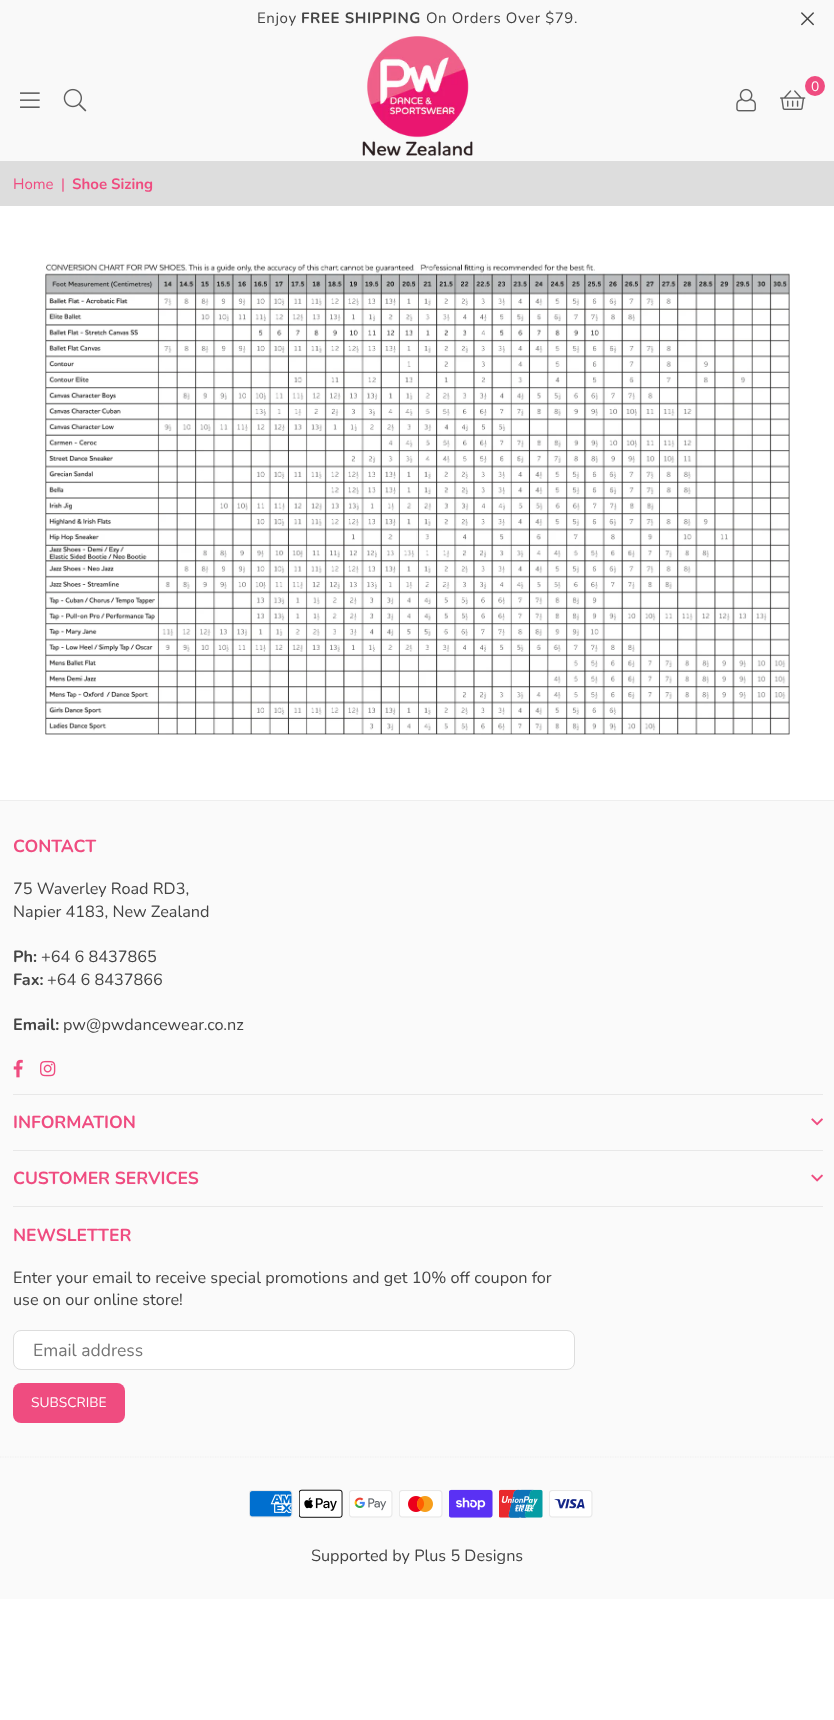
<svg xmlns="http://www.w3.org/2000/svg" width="834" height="1720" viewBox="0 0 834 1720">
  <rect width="100%" height="100%" fill="#ffffff"/>
  <rect x="0" y="0" width="834" height="161" fill="#f9f9f9"/>
  <text x="257" y="23" font-family="Nunito" font-size="15" letter-spacing="0.6" fill="#444444">Enjoy</text>
  <text x="301" y="23" font-family="Nunito" font-size="15" font-weight="bold" letter-spacing="0.6" fill="#444444">FREE SHIPPING</text>
  <text x="426" y="23" font-family="Nunito" font-size="15" letter-spacing="0.6" fill="#444444">On Orders Over $79.</text>
  <image x="801" y="12" width="13" height="14" href="img1.png"/>
  <image x="362" y="36" width="111" height="120" href="img2.png"/>
  <image x="780" y="90" width="26" height="20" href="img3.png"/>
  <circle cx="815" cy="86" r="10" fill="#ef4c80"/>
  <text x="811" y="91" font-family="Nunito" font-size="13.75" fill="#ffffff">0</text>
  <image x="736" y="88" width="20" height="24" href="img4.png"/>
  <image x="20" y="92" width="20" height="16" href="img5.png"/>
  <image x="63" y="88" width="24" height="24" href="img6.png"/>
  <rect x="0" y="161" width="834" height="45" fill="#dddddd"/>
  <text x="13" y="189" font-family="Nunito" font-size="15" fill="#ef4c80">Home</text>
  <text x="61" y="189" font-family="Nunito" font-size="15" fill="#ef4c80">|</text>
  <text x="72" y="189" font-family="Nunito" font-size="15" font-weight="bold" fill="#ef4c80">Shoe Sizing</text>
  <image x="45" y="263" width="745" height="472" href="img7.png"/>
  <rect x="0" y="801" width="834" height="798" fill="#fafafa"/>
  <rect x="0" y="800" width="834" height="1" fill="#eeeeee"/>
  <text x="13" y="852" font-family="Nunito" font-size="17.5" font-weight="bold" fill="#ef4c80">CONTACT</text>
  <text x="13" y="894" font-family="Nunito" font-size="16.25" fill="#444444">75 Waverley Road RD3,</text>
  <text x="13" y="917" font-family="Nunito" font-size="16.25" fill="#444444">Napier 4183, New Zealand</text>
  <text x="13" y="962" font-family="Nunito" font-size="16.25" font-weight="bold" fill="#444444">Ph:</text>
  <text x="41" y="962" font-family="Nunito" font-size="16.25" fill="#444444">+64 6 8437865</text>
  <text x="13" y="985" font-family="Nunito" font-size="16.25" font-weight="bold" fill="#444444">Fax:</text>
  <text x="47" y="985" font-family="Nunito" font-size="16.25" fill="#444444">+64 6 8437866</text>
  <text x="13" y="1030" font-family="Nunito" font-size="16.25" font-weight="bold" fill="#444444">Email:</text>
  <text x="63" y="1030" font-family="Nunito" font-size="16.25" fill="#444444">pw@pwdancewear.co.nz</text>
  <image x="13" y="1059" width="10" height="19" href="img8.png"/>
  <image x="40" y="1060" width="16" height="17" href="img9.png"/>
  <rect x="13" y="1094" width="810" height="1" fill="#e8e8e8"/>
  <text x="13" y="1128" font-family="Nunito" font-size="17.5" font-weight="bold" fill="#ef4c80">INFORMATION</text>
  <image x="811" y="1118" width="12" height="8" href="img10.png"/>
  <rect x="13" y="1150" width="810" height="1" fill="#e8e8e8"/>
  <text x="13" y="1184" font-family="Nunito" font-size="17.5" font-weight="bold" fill="#ef4c80">CUSTOMER SERVICES</text>
  <image x="811" y="1174" width="12" height="8" href="img11.png"/>
  <rect x="13" y="1206" width="810" height="1" fill="#e8e8e8"/>
  <text x="13" y="1241" font-family="Nunito" font-size="17.5" font-weight="bold" fill="#ef4c80">NEWSLETTER</text>
  <text x="13" y="1283" font-family="Nunito" font-size="16.25" fill="#444444">Enter your email to receive special promotions and get 10% off coupon for</text>
  <text x="13" y="1305" font-family="Nunito" font-size="16.25" fill="#444444">use on our online store!</text>
  <rect x="13.5" y="1330.5" width="561" height="39" rx="7.5" fill="#ffffff" stroke="#dddddd"/>
  <text x="33" y="1356" font-family="Nunito" font-size="17.5" fill="#757575">Email address</text>
  <rect x="13" y="1383" width="112" height="40" rx="8" fill="#ef4c80"/>
  <text x="31" y="1407" font-family="Nunito" font-size="13.75" fill="#ffffff">SUBSCRIBE</text>
  <path d="M0 1457H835" fill="none" stroke="#eeeeee" stroke-width="1.2" stroke-dasharray="1.25 1.25"/>
  <image x="249" y="1490" width="44" height="28" href="img12.png"/>
  <image x="299" y="1489" width="44" height="29" href="img13.png"/>
  <image x="349" y="1490" width="44" height="28" href="img14.png"/>
  <image x="399" y="1490" width="44" height="28" href="img15.png"/>
  <image x="449" y="1489" width="44" height="29" href="img16.png"/>
  <image x="499" y="1489" width="44" height="29" href="img17.png"/>
  <image x="549" y="1490" width="44" height="28" href="img18.png"/>
  <text x="311" y="1561" font-family="Nunito" font-size="16.25" fill="#444444">Supported by Plus 5 Designs</text>
</svg>
